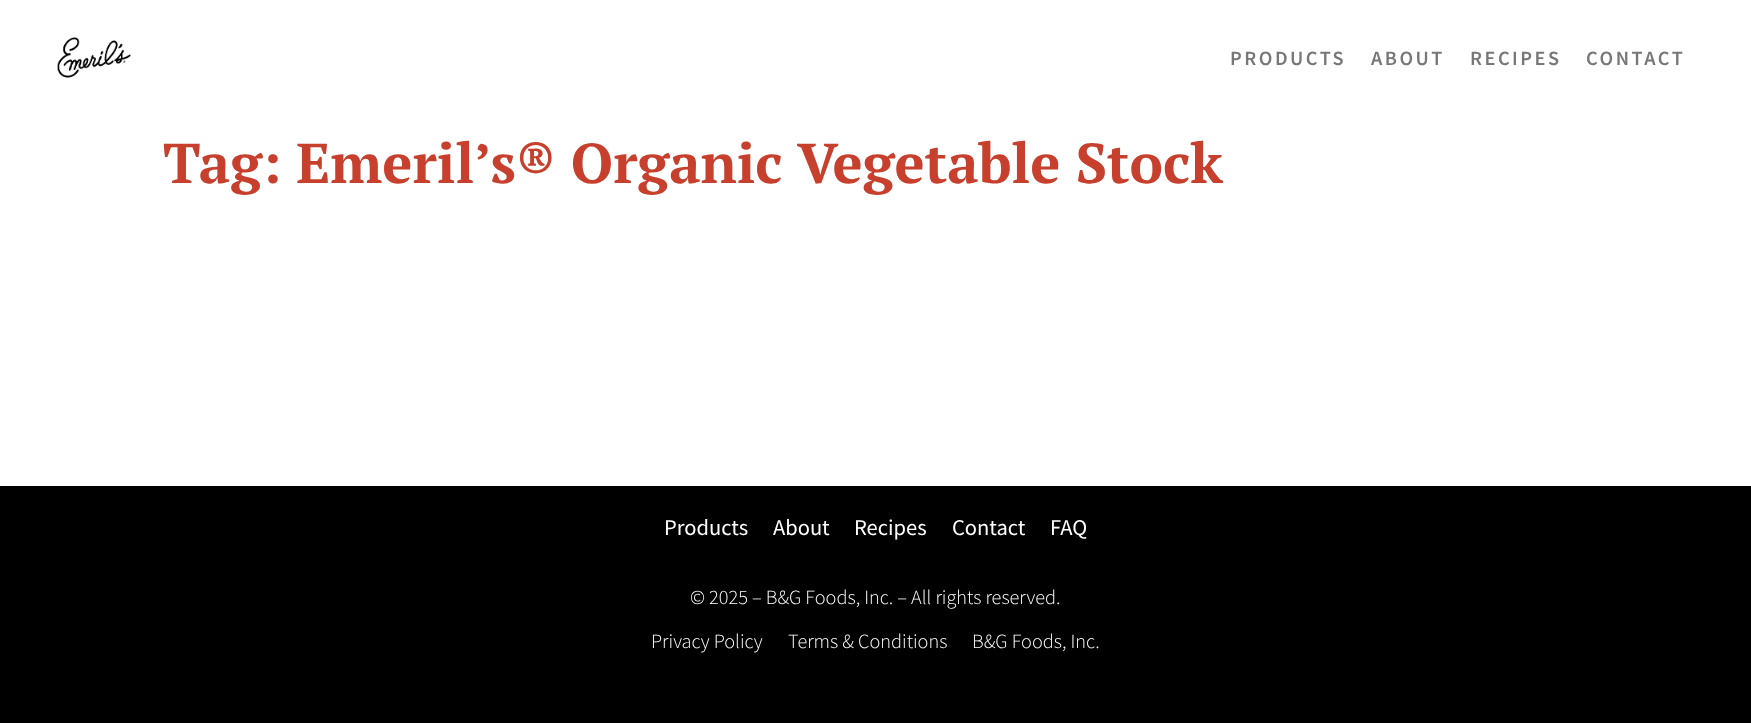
<svg xmlns="http://www.w3.org/2000/svg" width="1751" height="723" viewBox="0 0 1751 723">
  <rect width="100%" height="100%" fill="#ffffff"/>
  <image x="57" y="37" width="74" height="41" href="img1.png"/>
  <text x="1230" y="65" font-family="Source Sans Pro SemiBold" font-size="20.25" font-weight="600" letter-spacing="2.5" fill="#777777">PRODUCTS</text>
  <text x="1371" y="65" font-family="Source Sans Pro SemiBold" font-size="20.25" font-weight="600" letter-spacing="2.5" fill="#777777">ABOUT</text>
  <text x="1470" y="65" font-family="Source Sans Pro SemiBold" font-size="20.25" font-weight="600" letter-spacing="2.5" fill="#777777">RECIPES</text>
  <text x="1586" y="65" font-family="Source Sans Pro SemiBold" font-size="20.25" font-weight="600" letter-spacing="2.5" fill="#777777">CONTACT</text>
  <text x="163" y="183" font-family="PT Serif" font-size="56.25" font-weight="bold" fill="#c7402d">Tag: Emeril’s® Organic Vegetable Stock</text>
  <rect x="0" y="486" width="1751" height="237" fill="#000000"/>
  <text x="664" y="535" font-family="Source Sans Pro" font-size="22.5" fill="#ffffff">Products</text>
  <text x="773" y="535" font-family="Source Sans Pro" font-size="22.5" fill="#ffffff">About</text>
  <text x="854" y="535" font-family="Source Sans Pro" font-size="22.5" fill="#ffffff">Recipes</text>
  <text x="952" y="535" font-family="Source Sans Pro" font-size="22.5" fill="#ffffff">Contact</text>
  <text x="1050" y="535" font-family="Source Sans Pro" font-size="22.5" fill="#ffffff">FAQ</text>
  <text x="690" y="604" font-family="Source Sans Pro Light" font-size="20.25" font-weight="300" fill="#ffffff">© 2025 – B&amp;G Foods, Inc. – All rights reserved.</text>
  <text x="651" y="648" font-family="Source Sans Pro Light" font-size="20.25" font-weight="300" fill="#ffffff">Privacy Policy</text>
  <text x="788" y="648" font-family="Source Sans Pro Light" font-size="20.25" font-weight="300" fill="#ffffff">Terms &amp; Conditions</text>
  <text x="972" y="648" font-family="Source Sans Pro Light" font-size="20.25" font-weight="300" fill="#ffffff">B&amp;G Foods, Inc.</text>
</svg>
